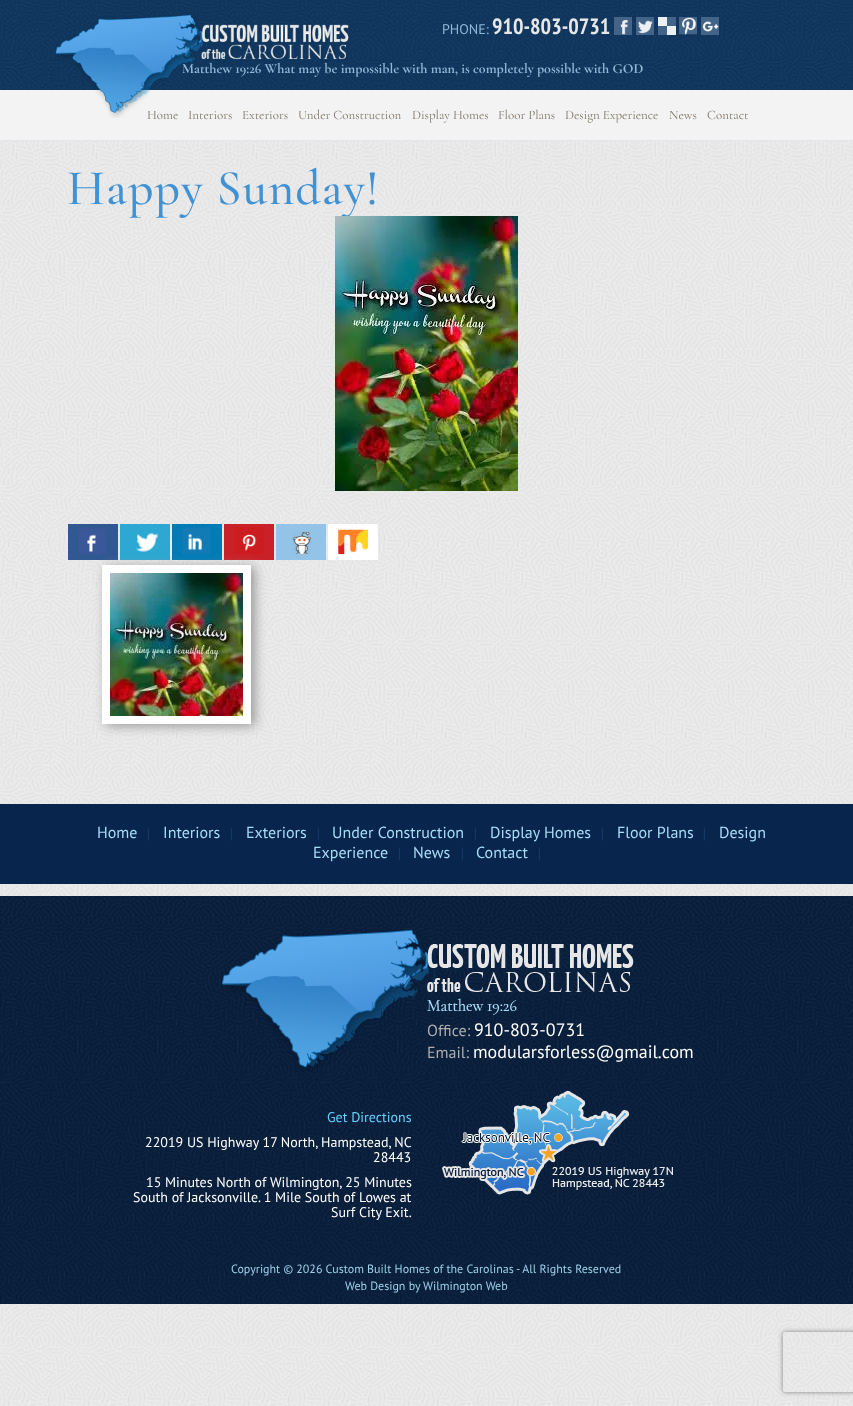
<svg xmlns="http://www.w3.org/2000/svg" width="853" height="1406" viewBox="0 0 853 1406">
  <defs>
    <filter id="blur1" x="-50%" y="-200%" width="200%" height="500%"><feGaussianBlur stdDeviation="6"/></filter>
    <clipPath id="clip1"><path d="M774 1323H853V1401H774ZM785 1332H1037C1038 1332 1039 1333 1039 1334V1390C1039 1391 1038 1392 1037 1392H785C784 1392 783 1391 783 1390V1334C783 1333 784 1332 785 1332Z" clip-rule="evenodd"/></clipPath>
    <filter id="blur2" x="-50%" y="-200%" width="200%" height="500%"><feGaussianBlur stdDeviation="2.5"/></filter>
  </defs>
  <rect width="100%" height="100%" fill="#ffffff"/>
  <image x="0" y="141" width="853" height="1265" href="img1.png"/>
  <image x="0" y="0" width="853" height="90" href="img2.png"/>
  <text x="442" y="34" font-family="PT Sans" font-size="14" fill="#93b7d8">PHONE:</text>
  <text x="492" y="34" font-family="PT Sans Narrow" font-size="22" font-weight="bold" fill="#e7e7e7">910-803-0731</text>
  <image x="614" y="17" width="18" height="18" href="img3.png"/>
  <image x="636" y="17" width="18" height="18" href="img4.png"/>
  <image x="658" y="17" width="18" height="18" href="img5.png"/>
  <image x="679" y="17" width="18" height="18" href="img6.png"/>
  <image x="701" y="17" width="18" height="18" href="img7.png"/>
  <text x="182" y="73" font-family="Cormorant Garamond" font-size="14" font-weight="bold" fill="#93b7d8">Matthew 19:26 What may be impossible with man, is completely possible with GOD</text>
  <rect x="0" y="90" width="853" height="50" fill="#f3f3f4"/>
  <image x="55" y="14" width="294" height="104" href="img8.png"/>
  <rect x="0" y="140" width="853" height="1" fill="#e1e6ec"/>
  <text x="147" y="119" font-family="Cormorant Garamond" font-size="13" fill="#7e7463">Home</text>
  <text x="188" y="119" font-family="Cormorant Garamond" font-size="13" fill="#7e7463">Interiors</text>
  <text x="242" y="119" font-family="Cormorant Garamond" font-size="13" fill="#7e7463">Exteriors</text>
  <text x="298" y="119" font-family="Cormorant Garamond" font-size="13" fill="#7e7463">Under Construction</text>
  <text x="412" y="119" font-family="Cormorant Garamond" font-size="13" fill="#7e7463">Display Homes</text>
  <text x="498" y="119" font-family="Cormorant Garamond" font-size="13" fill="#7e7463">Floor Plans</text>
  <text x="565" y="119" font-family="Cormorant Garamond" font-size="13" fill="#7e7463">Design Experience</text>
  <text x="669" y="119" font-family="Cormorant Garamond" font-size="13" fill="#7e7463">News</text>
  <text x="707" y="119" font-family="Cormorant Garamond" font-size="13" fill="#7e7463">Contact</text>
  <text x="67" y="204" font-family="Cormorant Garamond" font-size="50" font-weight="500" letter-spacing="1" fill="#4092d4">Happy Sunday!</text>
  <image x="335" y="216" width="183" height="275" href="img9.png"/>
  <rect x="68" y="524" width="50" height="36" fill="#305891"/>
  <image x="78" y="528" width="28" height="26" href="img10.png"/>
  <rect x="120" y="524" width="50" height="36" fill="#2ca8d2"/>
  <image x="136" y="533" width="23" height="19" href="img11.png"/>
  <rect x="172" y="524" width="50" height="36" fill="#007bb6"/>
  <image x="182" y="527" width="29" height="27" href="img12.png"/>
  <rect x="224" y="524" width="50" height="36" fill="#ca2027"/>
  <image x="235" y="527" width="29" height="27" href="img13.png"/>
  <rect x="276" y="524" width="50" height="36" fill="#93c3e6"/>
  <image x="292" y="531" width="19" height="23" href="img14.png"/>
  <rect x="328" y="524" width="50" height="36" fill="#ffffff"/>
  <image x="338" y="529" width="30" height="25" href="img15.png"/>
  <rect x="106" y="567" width="149" height="159" fill="#999999" filter="url(#blur1)"/>
  <rect x="106" y="569" width="141" height="151" fill="none" stroke="#ffffff" stroke-width="8"/>
  <image x="110" y="573" width="133" height="143" href="img16.png"/>
  <rect x="0" y="804" width="853" height="80" fill="#08264d"/>
  <text x="97" y="838" font-family="PT Sans" font-size="16" fill="#a8dcf5">Home</text>
  <text x="147" y="838" font-family="Cormorant Garamond" font-size="14" fill="#234c81">|</text>
  <text x="163" y="838" font-family="PT Sans" font-size="16" fill="#a8dcf5">Interiors</text>
  <text x="230" y="838" font-family="Cormorant Garamond" font-size="14" fill="#234c81">|</text>
  <text x="246" y="838" font-family="PT Sans" font-size="16" fill="#a8dcf5">Exteriors</text>
  <text x="317" y="838" font-family="Cormorant Garamond" font-size="14" fill="#234c81">|</text>
  <text x="332" y="838" font-family="PT Sans" font-size="16" fill="#a8dcf5">Under Construction</text>
  <text x="474" y="838" font-family="Cormorant Garamond" font-size="14" fill="#234c81">|</text>
  <text x="490" y="838" font-family="PT Sans" font-size="16" fill="#a8dcf5">Display Homes</text>
  <text x="601" y="838" font-family="Cormorant Garamond" font-size="14" fill="#234c81">|</text>
  <text x="617" y="838" font-family="PT Sans" font-size="16" fill="#a8dcf5">Floor Plans</text>
  <text x="703" y="838" font-family="Cormorant Garamond" font-size="14" fill="#234c81">|</text>
  <text x="719" y="838" font-family="PT Sans" font-size="16" fill="#a8dcf5">Design</text>
  <text x="313" y="858" font-family="PT Sans" font-size="16" fill="#a8dcf5">Experience</text>
  <text x="398" y="858" font-family="Cormorant Garamond" font-size="14" fill="#234c81">|</text>
  <text x="413" y="858" font-family="PT Sans" font-size="16" fill="#a8dcf5">News</text>
  <text x="461" y="858" font-family="Cormorant Garamond" font-size="14" fill="#234c81">|</text>
  <text x="476" y="858" font-family="PT Sans" font-size="16" fill="#a8dcf5">Contact</text>
  <text x="538" y="858" font-family="Cormorant Garamond" font-size="14" fill="#234c81">|</text>
  <image x="0" y="896" width="853" height="408" href="img17.png"/>
  <image x="221" y="929" width="413" height="143" href="img18.png"/>
  <text x="427" y="1036" font-family="PT Sans" font-size="16" fill="#afaeae">Office:</text>
  <text x="474" y="1036" font-family="PT Sans" font-size="18" fill="#ffffff">910-803-0731</text>
  <text x="427" y="1058" font-family="PT Sans" font-size="16" fill="#afaeae">Email:</text>
  <text x="473" y="1058" font-family="PT Sans" font-size="18" fill="#ffffff">modularsforless@gmail.com</text>
  <text x="327" y="1122" font-family="PT Sans" font-size="14" fill="#66d0fd">Get Directions</text>
  <text x="145" y="1147" font-family="PT Sans" font-size="14" fill="#ffffff">22019 US Highway 17 North, Hampstead, NC</text>
  <text x="373" y="1162" font-family="PT Sans" font-size="14" fill="#ffffff">28443</text>
  <text x="146" y="1187" font-family="PT Sans" font-size="14" fill="#ffffff">15 Minutes North of Wilmington, 25 Minutes</text>
  <text x="133" y="1202" font-family="PT Sans" font-size="14" fill="#ffffff">South of Jacksonville. 1 Mile South of Lowes at</text>
  <text x="331" y="1217" font-family="PT Sans" font-size="14" fill="#ffffff">Surf City Exit.</text>
  <image x="442" y="1090" width="231" height="105" href="img19.png"/>
  <text x="231" y="1273" font-family="PT Sans" font-size="12" fill="#9dcfe8">Copyright © 2026 Custom Built Homes of the Carolinas - All Rights Reserved</text>
  <text x="345" y="1290" font-family="PT Sans" font-size="12" fill="#9dcfe8">Web Design by Wilmington Web</text>
  <g clip-path="url(#clip1)">
    <rect x="783" y="1332" width="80" height="60" rx="2" fill="#808080" filter="url(#blur2)"/>
  </g>
</svg>
